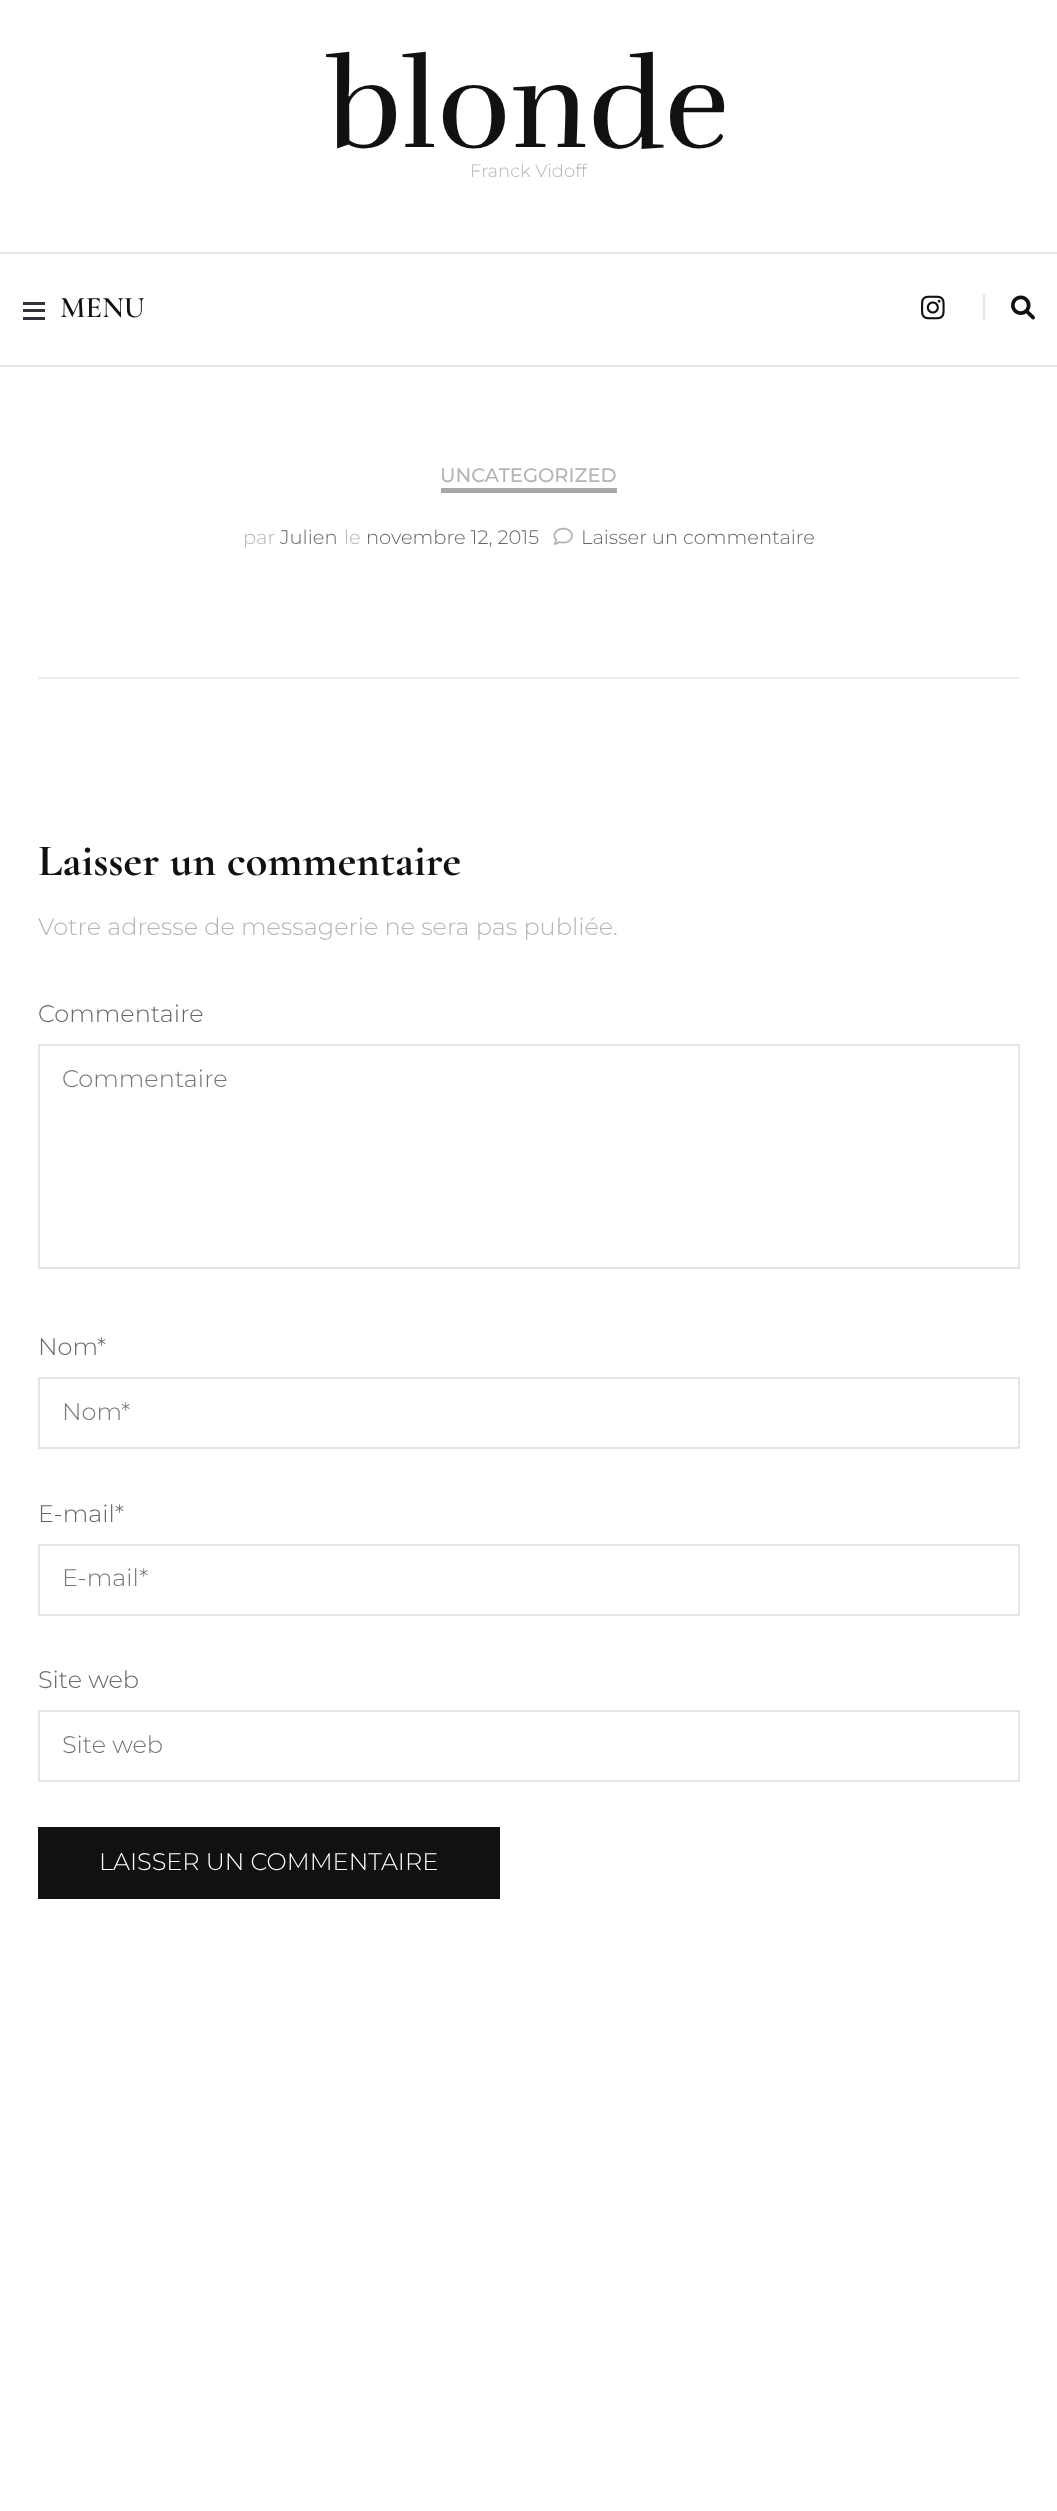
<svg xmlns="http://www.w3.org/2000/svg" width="1057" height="2511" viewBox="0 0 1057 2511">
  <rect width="100%" height="100%" fill="#ffffff"/>
  <text x="327" y="147" font-family="Rufina" font-size="124.5" fill="#111111">blonde</text>
  <text x="470" y="177" font-family="Montserrat" font-size="18" font-weight="300" fill="#b5b5b5">Franck Vidoff</text>
  <rect x="0" y="252" width="1057" height="2" fill="#e5e5e5"/>
  <rect x="0" y="365" width="1057" height="2" fill="#e5e5e5"/>
  <rect x="23" y="309" width="22" height="3" fill="#323338"/>
  <rect x="23" y="302" width="22" height="3" fill="#323338"/>
  <rect x="23" y="317" width="22" height="3" fill="#323338"/>
  <text x="60" y="317" font-family="Cormorant Garamond" font-size="30" font-weight="600" fill="#111111">MENU</text>
  <image x="921" y="295" width="24" height="25" href="img1.png"/>
  <rect x="983" y="294" width="2" height="27" fill="#e5e5e5"/>
  <image x="1011" y="295" width="24" height="25" href="img2.png"/>
  <rect x="441" y="488" width="176" height="5" fill="#a8a8a8"/>
  <text x="440" y="482" font-family="Montserrat" font-size="19.5" font-weight="500" fill="#b5b5b5">UNCATEGORIZED</text>
  <text x="243" y="544" font-family="Montserrat" font-size="19.5" font-weight="300" fill="#b5b5b5">par</text>
  <text x="280" y="544" font-family="Montserrat" font-size="19.5" font-weight="300" fill="#666666">Julien</text>
  <text x="344" y="544" font-family="Montserrat" font-size="19.5" font-weight="300" fill="#b5b5b5">le</text>
  <text x="366" y="544" font-family="Montserrat" font-size="19.5" font-weight="300" fill="#666666">novembre 12, 2015</text>
  <image x="553" y="527" width="20" height="18" href="img3.png"/>
  <text x="581" y="544" font-family="Montserrat" font-size="19.5" font-weight="300" fill="#666666">Laisser un commentaire</text>
  <rect x="38" y="677" width="982" height="2" fill="#eeeeee"/>
  <text x="38" y="875" font-family="Cormorant Garamond" font-size="45" font-weight="bold" fill="#111111">Laisser un commentaire</text>
  <text x="38" y="935" font-family="Montserrat" font-size="24" font-weight="300" fill="#b5b5b5">Votre adresse de messagerie ne sera pas publiée.</text>
  <text x="38" y="1022" font-family="Montserrat" font-size="24" font-weight="300" fill="#666666">Commentaire</text>
  <rect x="39" y="1045" width="980" height="223" fill="none" stroke="#e5e5e5" stroke-width="2"/>
  <text x="62" y="1087" font-family="Montserrat" font-size="24" font-weight="300" fill="#757575">Commentaire</text>
  <text x="38" y="1355" font-family="Montserrat" font-size="24" font-weight="300" fill="#666666">Nom</text>
  <text x="97" y="1355" font-family="Montserrat" font-size="24" font-weight="300" fill="#666666">*</text>
  <rect x="39" y="1378" width="980" height="70" fill="none" stroke="#e5e5e5" stroke-width="2"/>
  <text x="62" y="1420" font-family="Montserrat" font-size="24" font-weight="300" fill="#757575">Nom*</text>
  <text x="38" y="1522" font-family="Montserrat" font-size="24" font-weight="300" fill="#666666">E-mail</text>
  <text x="115" y="1522" font-family="Montserrat" font-size="24" font-weight="300" fill="#666666">*</text>
  <rect x="39" y="1545" width="980" height="70" fill="none" stroke="#e5e5e5" stroke-width="2"/>
  <text x="62" y="1586" font-family="Montserrat" font-size="24" font-weight="300" fill="#757575">E-mail*</text>
  <text x="38" y="1688" font-family="Montserrat" font-size="24" font-weight="300" fill="#666666">Site web</text>
  <rect x="39" y="1711" width="980" height="70" fill="none" stroke="#e5e5e5" stroke-width="2"/>
  <text x="62" y="1753" font-family="Montserrat" font-size="24" font-weight="300" fill="#757575">Site web</text>
  <rect x="38" y="1827" width="462" height="72" fill="#111111"/>
  <text x="99" y="1870" font-family="Montserrat" font-size="24" font-weight="300" fill="#ffffff">LAISSER UN COMMENTAIRE</text>
</svg>
